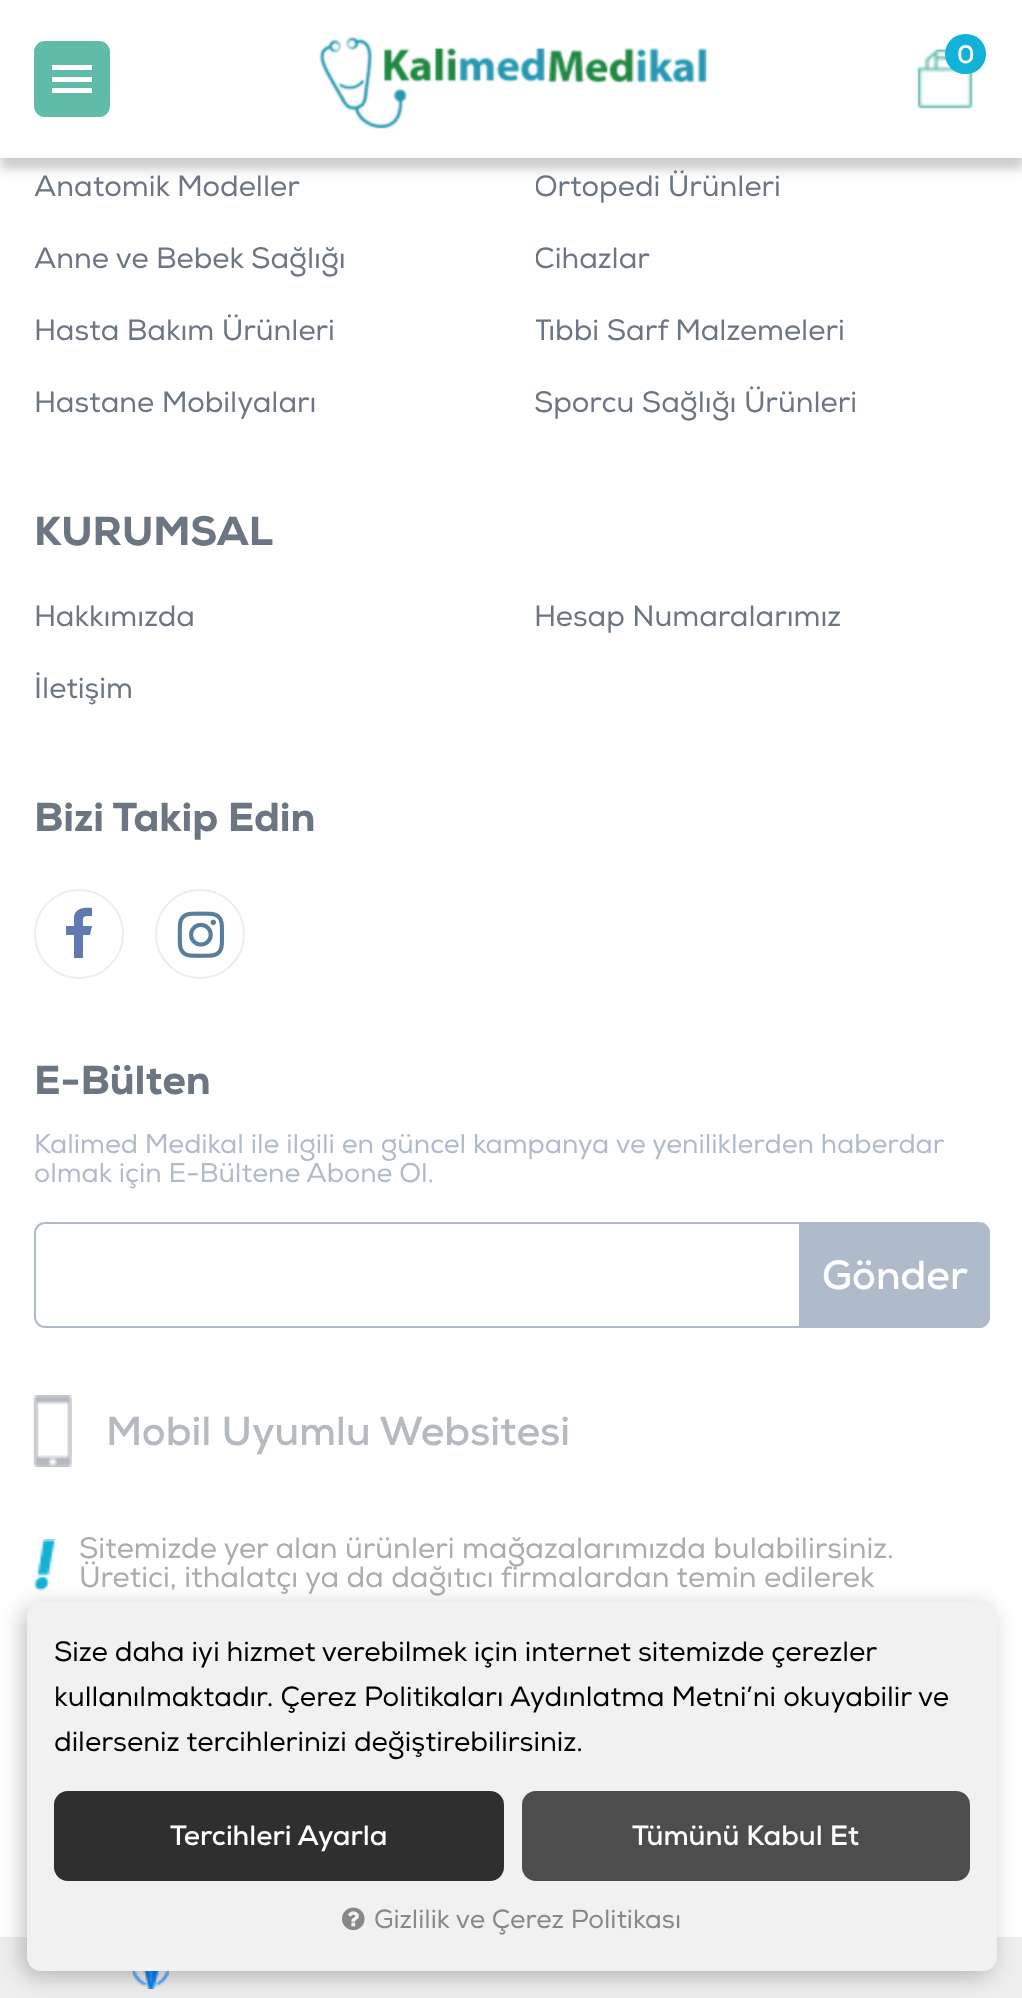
<svg xmlns="http://www.w3.org/2000/svg" width="1022" height="1998" viewBox="0 0 1022 1998">
  <defs>
    <filter id="blur1" x="-50%" y="-200%" width="200%" height="500%"><feGaussianBlur stdDeviation="5.5"/></filter>
    <clipPath id="clip1"><rect x="536" y="151" width="454" height="72"/></clipPath>
    <clipPath id="clip2"><rect x="536" y="223" width="454" height="72"/></clipPath>
    <clipPath id="clip3"><rect x="536" y="295" width="454" height="72"/></clipPath>
    <filter id="blur2" x="-50%" y="-200%" width="200%" height="500%"><feGaussianBlur stdDeviation="11"/></filter>
  </defs>
  <rect width="100%" height="100%" fill="#ffffff"/>
  <rect x="0" y="11" width="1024" height="158" fill="#000000" fill-opacity="0.2" filter="url(#blur1)"/>
  <rect x="0" y="2" width="1022" height="156" fill="#ffffff"/>
  <rect x="30.5" y="37.5" width="83" height="83" rx="14.5" fill="#60bba8" stroke="#ffffff" stroke-width="7"/>
  <rect x="52" y="65" width="40" height="5" fill="#ffffff"/>
  <rect x="52" y="77" width="40" height="5" fill="#ffffff"/>
  <rect x="52" y="88" width="40" height="5" fill="#ffffff"/>
  <image x="319" y="36" width="388" height="93" href="img1.png"/>
  <image x="917" y="48" width="56" height="61" href="img2.png"/>
  <rect x="945" y="34" width="41" height="40" rx="20" fill="#12b1d6"/>
  <text x="957" y="63" font-family="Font" font-size="25" font-weight="bold" fill="#ffffff">0</text>
  <text x="34" y="196" font-family="Font" font-size="29.25" fill="#6c7683">Anatomik Modeller</text>
  <g clip-path="url(#clip1)">
    <text x="534" y="196" font-family="Font" font-size="29.25" fill="#6c7683">Ortopedi Ürünleri</text>
  </g>
  <text x="34" y="268" font-family="Font" font-size="29.25" fill="#6c7683">Anne ve Bebek Sağlığı</text>
  <g clip-path="url(#clip2)">
    <text x="534" y="268" font-family="Font" font-size="29.25" fill="#6c7683">Cihazlar</text>
  </g>
  <text x="34" y="340" font-family="Font" font-size="29.25" fill="#6c7683">Hasta Bakım Ürünleri</text>
  <g clip-path="url(#clip3)">
    <text x="534" y="340" font-family="Font" font-size="29.25" fill="#6c7683">Tıbbi Sarf Malzemeleri</text>
  </g>
  <text x="34" y="412" font-family="Font" font-size="29.25" fill="#6c7683">Hastane Mobilyaları</text>
  <text x="534" y="412" font-family="Font" font-size="29.25" fill="#6c7683">Sporcu Sağlığı Ürünleri</text>
  <text x="34" y="545" font-family="Font" font-size="40.5" font-weight="900" fill="#6c7683">KURUMSAL</text>
  <text x="34" y="626" font-family="Font" font-size="29.25" fill="#6c7683">Hakkımızda</text>
  <text x="534" y="626" font-family="Font" font-size="29.25" fill="#6c7683">Hesap Numaralarımız</text>
  <text x="34" y="698" font-family="Font" font-size="29.25" fill="#6c7683">İletişim</text>
  <text x="34" y="831" font-family="Font" font-size="40.5" font-weight="900" fill="#6c7683">Bizi Takip Edin</text>
  <circle cx="79" cy="934" r="44" fill="none" stroke="#eeeeee" stroke-width="2"/>
  <path d="M92 908V916C82 916 83 916 83 926H92L90 935H83V958H74V935H66V926H74V917C75 908 84 907 92 908Z" fill="#6179b1"/>
  <circle cx="200" cy="934" r="44" fill="none" stroke="#eeeeee" stroke-width="2"/>
  <image x="177" y="911" width="48" height="47" href="img3.png"/>
  <text x="34" y="1094" font-family="Font" font-size="40.5" font-weight="900" fill="#6c7683">E-Bülten</text>
  <text x="34" y="1153" font-family="Font" font-size="27" fill="#afbbcb">Kalimed Medikal ile ilgili en güncel kampanya ve yeniliklerden haberdar</text>
  <text x="34" y="1182" font-family="Font" font-size="27" fill="#afbbcb">olmak için E-Bültene Abone Ol.</text>
  <rect x="35" y="1223" width="954" height="104" rx="10" fill="none" stroke="#afbbcb" stroke-width="2"/>
  <path d="M799 1222H979C985 1222 990 1227 990 1233V1317C990 1323 985 1328 979 1328H799Z" fill="#afbbcb"/>
  <text x="822" y="1289" font-family="Font" font-size="40.5" font-weight="bold" fill="#ffffff">Gönder</text>
  <image x="33" y="1395" width="39" height="72" href="img4.png"/>
  <text x="106" y="1445" font-family="Font" font-size="40.5" font-weight="bold" fill="#b5bac1">Mobil Uyumlu Websitesi</text>
  <image x="33" y="1539" width="24" height="52" href="img5.png"/>
  <text x="79" y="1558" font-family="Font" font-size="29.25" fill="#acacac">Sitemizde yer alan ürünleri mağazalarımızda bulabilirsiniz.</text>
  <text x="79" y="1587" font-family="Font" font-size="29.25" fill="#acacac">Üretici, ithalatçı ya da dağıtıcı firmalardan temin edilerek</text>
  <rect x="0" y="1937" width="1022" height="61" fill="#eeeeee"/>
  <image x="132" y="1971" width="37" height="18" href="img7.png"/>
  <rect x="23" y="1607" width="969" height="369" rx="14" fill="#000000" fill-opacity="0.25" filter="url(#blur2)"/>
  <rect x="27" y="1602" width="970" height="369" rx="14" fill="#f1f1f1"/>
  <text x="54" y="1661" word-spacing="-0.25" font-family="Font" font-size="27.8" fill="#000000">Size daha iyi hizmet verebilmek için internet sitemizde çerezler</text>
  <text x="54" y="1706" font-family="Font" font-size="27.8" fill="#000000">kullanılmaktadır. Çerez Politikaları Aydınlatma Metni’ni okuyabilir ve</text>
  <text x="54" y="1751" font-family="Font" font-size="27.8" fill="#000000">dilerseniz tercihlerinizi değiştirebilirsiniz.</text>
  <rect x="54" y="1791" width="450" height="90" rx="14" fill="#2f2f2f"/>
  <text x="170" y="1845" font-family="Font" font-size="27.8" font-weight="bold" fill="#ffffff">Tercihleri Ayarla</text>
  <rect x="522" y="1791" width="448" height="90" rx="14" fill="#4d4d4d"/>
  <text x="632" y="1845" font-family="Font" font-size="27.8" font-weight="bold" fill="#ffffff">Tümünü Kabul Et</text>
  <image x="342" y="1907" width="23" height="24" href="img6.png"/>
  <text x="374" y="1928" font-family="Font" font-size="26.25" fill="#888888">Gizlilik ve Çerez Politikası</text>
</svg>
